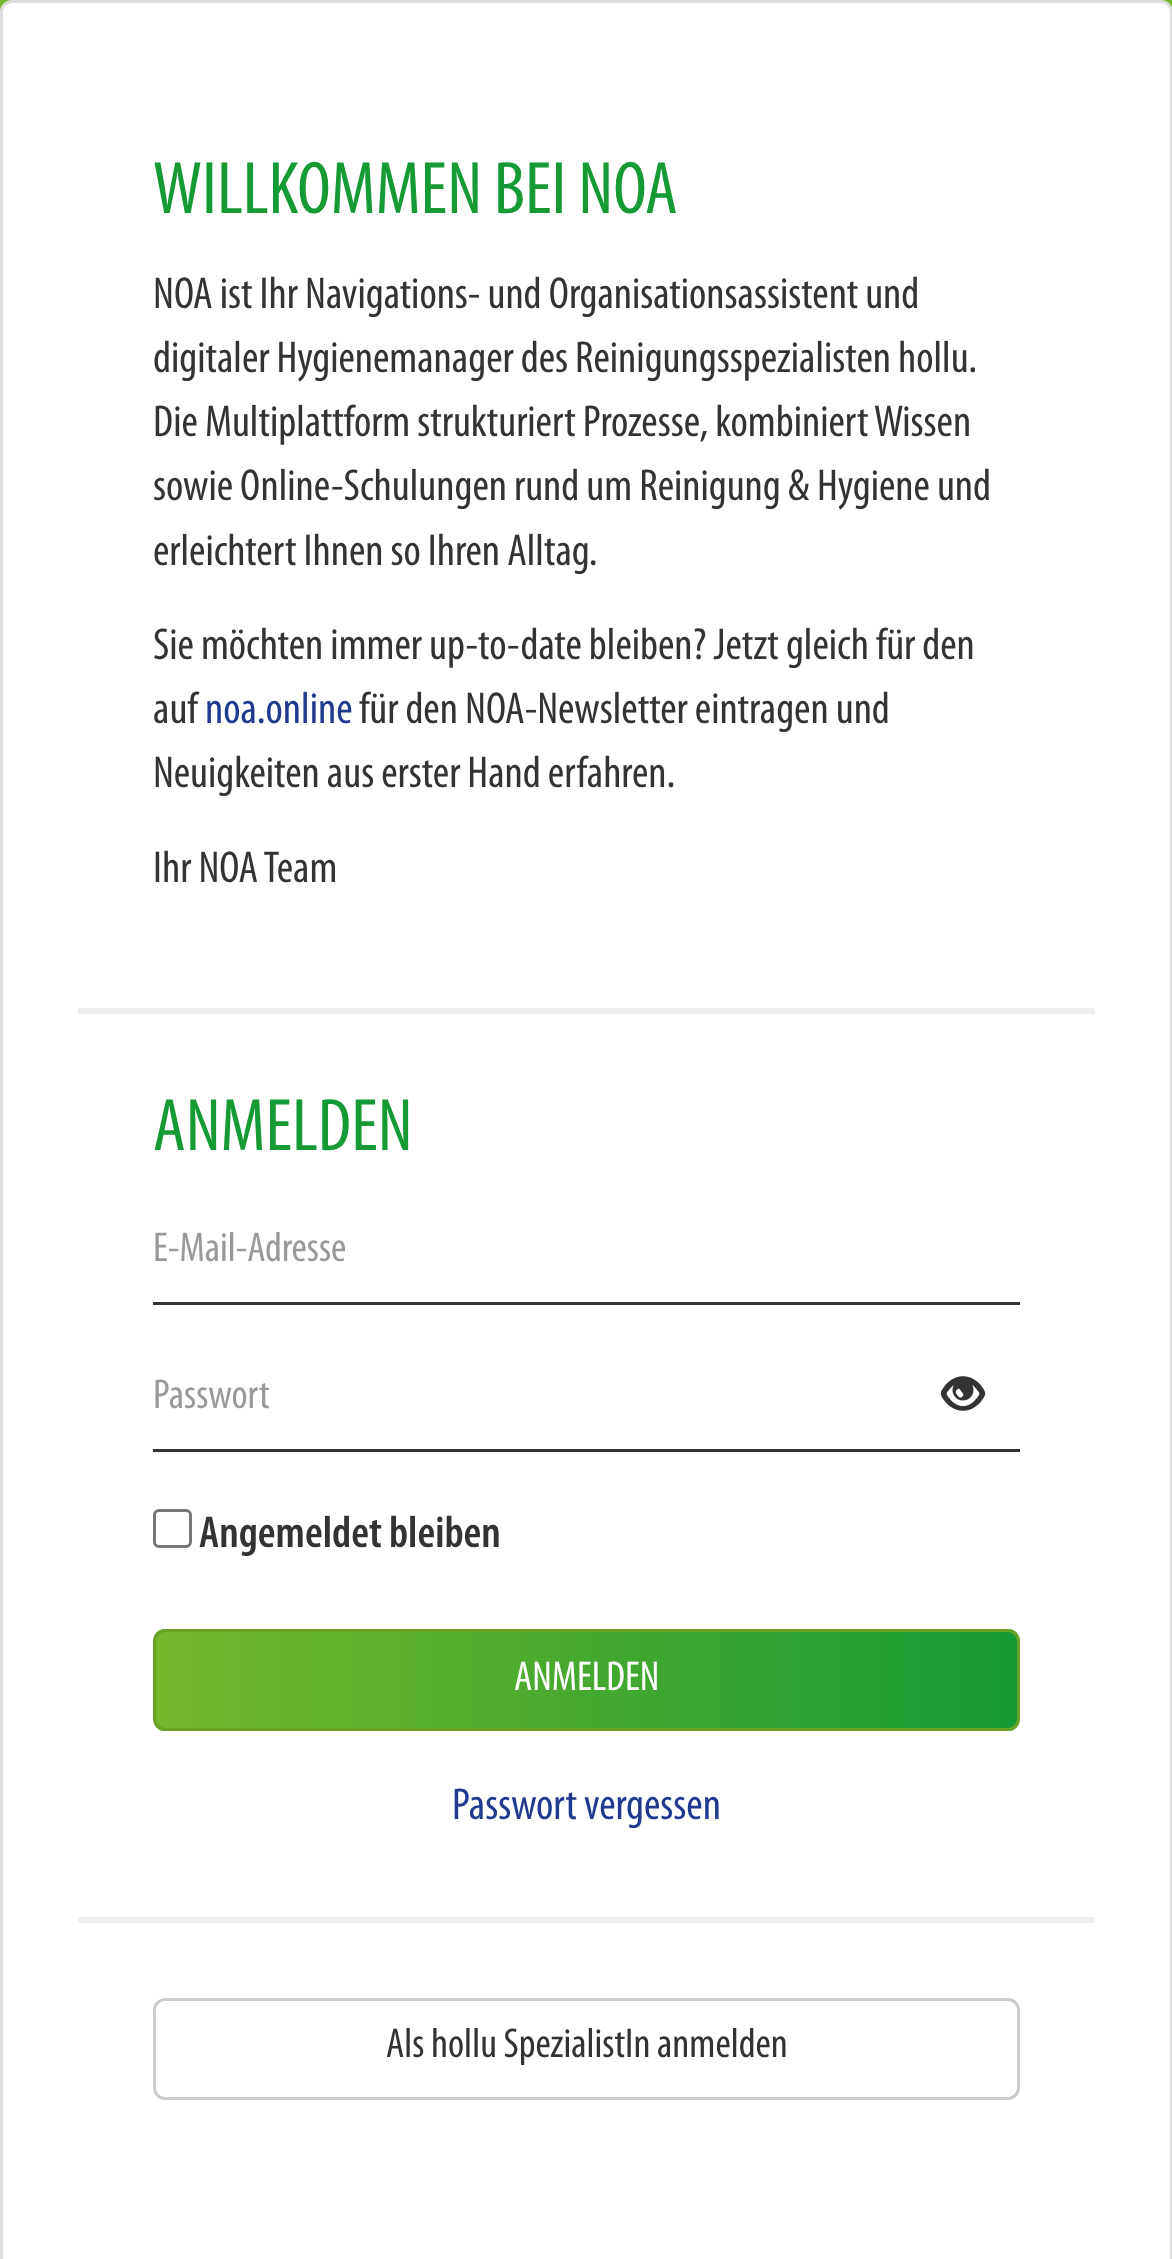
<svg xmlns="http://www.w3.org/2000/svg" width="1172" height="2259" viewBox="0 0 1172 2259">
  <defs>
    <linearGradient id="g1" gradientUnits="userSpaceOnUse" x1="586" y1="0" x2="587" y2="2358"><stop offset="0" stop-color="#76b82a"/><stop offset="1" stop-color="#159a34"/></linearGradient>
    <clipPath id="clip1"><rect x="153" y="1629" width="867" height="102" rx="12"/></clipPath>
    <linearGradient id="g2" gradientUnits="userSpaceOnUse" x1="156" y1="1680" x2="1017" y2="1680"><stop offset="0" stop-color="#76b82a"/><stop offset="1" stop-color="#159a34"/></linearGradient>
  </defs>
  <rect width="100%" height="100%" fill="#ffffff"/>
  <rect x="0" y="0" width="1172" height="12" fill="url(#g1)"/>
  <rect x="1.5" y="1.5" width="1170" height="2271" rx="10.5" fill="#ffffff" stroke="#dddddd" stroke-width="3"/>
  <text x="153" y="213" font-family="Myriad" font-size="75" fill="#159a34">WILLKOMMEN BEI NOA</text>
  <text x="153" y="308" font-family="Myriad" font-size="45" fill="#333333">NOA ist Ihr Navigations- und Organisationsassistent und</text>
  <text x="153" y="372" font-family="Myriad" font-size="45" fill="#333333">digitaler Hygienemanager des Reinigungsspezialisten hollu.</text>
  <text x="153" y="436" font-family="Myriad" font-size="45" fill="#333333">Die Multiplattform strukturiert Prozesse, kombiniert Wissen</text>
  <text x="153" y="500" font-family="Myriad" font-size="45" fill="#333333">sowie Online-Schulungen rund um Reinigung &amp; Hygiene und</text>
  <text x="153" y="565" font-family="Myriad" font-size="45" fill="#333333">erleichtert Ihnen so Ihren Alltag.</text>
  <text x="153" y="659" font-family="Myriad" font-size="45" fill="#333333">Sie möchten immer up-to-date bleiben? Jetzt gleich für den</text>
  <text x="153" y="723" font-family="Myriad" font-size="45" fill="#333333">auf</text>
  <text x="205" y="723" font-family="Myriad" font-size="45" fill="#213a8f">noa.online</text>
  <text x="359" y="723" font-family="Myriad" font-size="45" fill="#333333">für den NOA-Newsletter eintragen und</text>
  <text x="153" y="787" font-family="Myriad" font-size="45" fill="#333333">Neuigkeiten aus erster Hand erfahren.</text>
  <text x="153" y="882" font-family="Myriad" font-size="45" fill="#333333">Ihr NOA Team</text>
  <rect x="78" y="1008" width="1017" height="6" fill="#eeeeee"/>
  <text x="153" y="1150" font-family="Myriad" font-size="75" fill="#159a34">ANMELDEN</text>
  <rect x="153" y="1302" width="867" height="3" fill="#333333"/>
  <text x="153" y="1261" font-family="Myriad" font-size="42" fill="#999999">E-Mail-Adresse</text>
  <rect x="153" y="1449" width="867" height="3" fill="#333333"/>
  <text x="153" y="1408" font-family="Myriad" font-size="42" fill="#999999">Passwort</text>
  <image x="940" y="1376" width="46" height="35" href="img1.png"/>
  <rect x="154.5" y="1510.5" width="36" height="36" rx="4.5" fill="none" stroke="#767676" stroke-width="3"/>
  <text x="199" y="1547" font-family="Myriad" font-size="45" font-weight="600" fill="#333333">Angemeldet bleiben</text>
  <g clip-path="url(#clip1)">
    <rect x="156" y="1629" width="861" height="102" fill="url(#g2)"/>
  </g>
  <rect x="154.5" y="1630.5" width="864" height="99" rx="10.5" fill="none" stroke="#69a325" stroke-width="3"/>
  <text x="514" y="1690" font-family="Myriad" font-size="42" fill="#ffffff">ANMELDEN</text>
  <text x="452" y="1819" font-family="Myriad" font-size="45" fill="#213a8f">Passwort vergessen</text>
  <rect x="78" y="1917" width="1017" height="6" fill="#eeeeee"/>
  <rect x="154.5" y="1999.5" width="864" height="99" rx="10.5" fill="none" stroke="#cccccc" stroke-width="3"/>
  <text x="386" y="2057" font-family="Myriad" font-size="42" fill="#333333">Als hollu SpezialistIn anmelden</text>
</svg>
